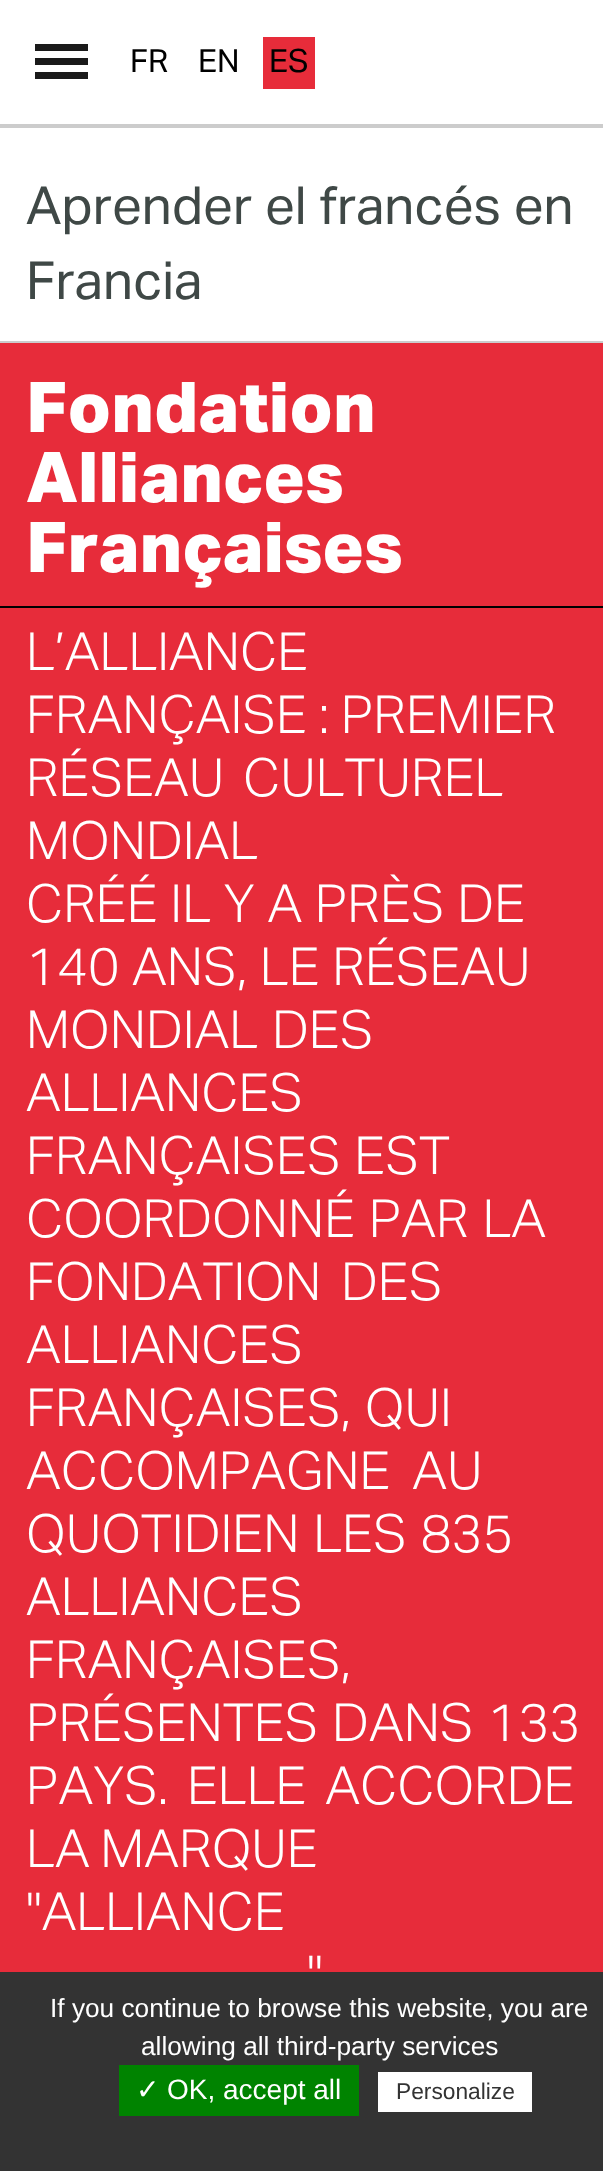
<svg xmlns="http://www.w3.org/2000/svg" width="603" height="2171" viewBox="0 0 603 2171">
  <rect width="100%" height="100%" fill="#ffffff"/>
  <rect x="0" y="124" width="603" height="4" fill="#cccccc"/>
  <rect x="35" y="44" width="53" height="7" fill="#1a1a1a"/>
  <rect x="35" y="58" width="53" height="7" fill="#1a1a1a"/>
  <rect x="35" y="72" width="53" height="7" fill="#1a1a1a"/>
  <text x="130" y="72" font-family="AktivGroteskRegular" font-size="32" fill="#000000">FR</text>
  <text x="198" y="72" font-family="AktivGroteskRegular" font-size="32" fill="#000000">EN</text>
  <rect x="263" y="37" width="52" height="52" fill="#e72c3a"/>
  <text x="269" y="72" font-family="AktivGroteskRegular" font-size="32" fill="#000000">ES</text>
  <rect x="0" y="341" width="603" height="2" fill="#cccccc"/>
  <text x="26" y="224" word-spacing="1" font-family="AktivGroteskRegular" font-size="52.5" fill="#3f4846">Aprender el francés en</text>
  <text x="26" y="299" font-family="AktivGroteskRegular" font-size="52.5" fill="#3f4846">Francia</text>
  <rect x="0" y="343" width="603" height="263" fill="#e72c3a"/>
  <text x="26" y="432" font-family="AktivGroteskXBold" font-size="70" font-weight="bold" fill="#ffffff">Fondation</text>
  <text x="26" y="502" font-family="AktivGroteskXBold" font-size="70" font-weight="bold" fill="#ffffff">Alliances</text>
  <text x="26" y="572" font-family="AktivGroteskXBold" font-size="70" font-weight="bold" fill="#ffffff">Françaises</text>
  <rect x="0" y="608" width="603" height="1364" fill="#e72c3a"/>
  <rect x="0" y="606" width="603" height="2" fill="#000000"/>
  <text x="26" y="670" font-family="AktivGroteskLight" font-size="52.5" font-weight="300" fill="#ffffff">L’ALLIANCE</text>
  <text x="26" y="733" font-family="AktivGroteskLight" font-size="52.5" font-weight="300" fill="#ffffff">FRANÇAISE : PREMIER</text>
  <text x="26" y="796" word-spacing="7" font-family="AktivGroteskLight" font-size="52.5" font-weight="300" fill="#ffffff">RÉSEAU CULTUREL</text>
  <text x="26" y="859" font-family="AktivGroteskLight" font-size="52.5" font-weight="300" fill="#ffffff">MONDIAL</text>
  <text x="26" y="922" word-spacing="1" font-family="AktivGroteskLight" font-size="52.5" font-weight="300" fill="#ffffff">CRÉÉ IL Y A PRÈS DE</text>
  <text x="26" y="985" word-spacing="1" font-family="AktivGroteskLight" font-size="52.5" font-weight="300" fill="#ffffff">140 ANS, LE RÉSEAU</text>
  <text x="26" y="1048" word-spacing="2" font-family="AktivGroteskLight" font-size="52.5" font-weight="300" fill="#ffffff">MONDIAL DES</text>
  <text x="26" y="1111" font-family="AktivGroteskLight" font-size="52.5" font-weight="300" fill="#ffffff">ALLIANCES</text>
  <text x="26" y="1174" word-spacing="2" font-family="AktivGroteskLight" font-size="52.5" font-weight="300" fill="#ffffff">FRANÇAISES EST</text>
  <text x="26" y="1237" word-spacing="2" font-family="AktivGroteskLight" font-size="52.5" font-weight="300" fill="#ffffff">COORDONNÉ PAR LA</text>
  <text x="26" y="1300" word-spacing="8" font-family="AktivGroteskLight" font-size="52.5" font-weight="300" fill="#ffffff">FONDATION DES</text>
  <text x="26" y="1363" font-family="AktivGroteskLight" font-size="52.5" font-weight="300" fill="#ffffff">ALLIANCES</text>
  <text x="26" y="1426" word-spacing="2" font-family="AktivGroteskLight" font-size="52.5" font-weight="300" fill="#ffffff">FRANÇAISES, QUI</text>
  <text x="26" y="1489" word-spacing="10" font-family="AktivGroteskLight" font-size="52.5" font-weight="300" fill="#ffffff">ACCOMPAGNE AU</text>
  <text x="26" y="1552" word-spacing="2" font-family="AktivGroteskLight" font-size="52.5" font-weight="300" fill="#ffffff">QUOTIDIEN LES 835</text>
  <text x="26" y="1615" font-family="AktivGroteskLight" font-size="52.5" font-weight="300" fill="#ffffff">ALLIANCES</text>
  <text x="26" y="1678" font-family="AktivGroteskLight" font-size="52.5" font-weight="300" fill="#ffffff">FRANÇAISES,</text>
  <text x="26" y="1741" word-spacing="2" font-family="AktivGroteskLight" font-size="52.5" font-weight="300" fill="#ffffff">PRÉSENTES DANS 133</text>
  <text x="26" y="1804" word-spacing="7" font-family="AktivGroteskLight" font-size="52.5" font-weight="300" fill="#ffffff">PAYS. ELLE ACCORDE</text>
  <text x="26" y="1867" word-spacing="-1" font-family="AktivGroteskLight" font-size="52.5" font-weight="300" fill="#ffffff">LA MARQUE</text>
  <text x="26" y="1930" font-family="AktivGroteskLight" font-size="52.5" font-weight="300" fill="#ffffff">"ALLIANCE</text>
  <text x="307" y="1993" word-spacing="-1" font-family="AktivGroteskLight" font-size="52.5" font-weight="300" fill="#ffffff">"</text>
  <rect x="0" y="1972" width="603" height="199" fill="#333333"/>
  <text x="50" y="2017" font-family="Liberation Sans" font-size="26.25" fill="#ffffff">If you continue to browse this website, you are</text>
  <text x="141" y="2055" font-family="Liberation Sans" font-size="26.25" fill="#ffffff">allowing all third-party services</text>
  <rect x="119" y="2065" width="240" height="51" fill="#008300"/>
  <text x="136" y="2099" font-family="DejaVu Sans" font-size="28" fill="#ffffff">✓</text>
  <text x="167" y="2099" font-family="Liberation Sans" font-size="28" fill="#ffffff">OK, accept all</text>
  <rect x="378" y="2072" width="154" height="40" fill="#ffffff"/>
  <text x="396" y="2099" font-family="Liberation Sans" font-size="22.75" fill="#333333">Personalize</text>
</svg>
